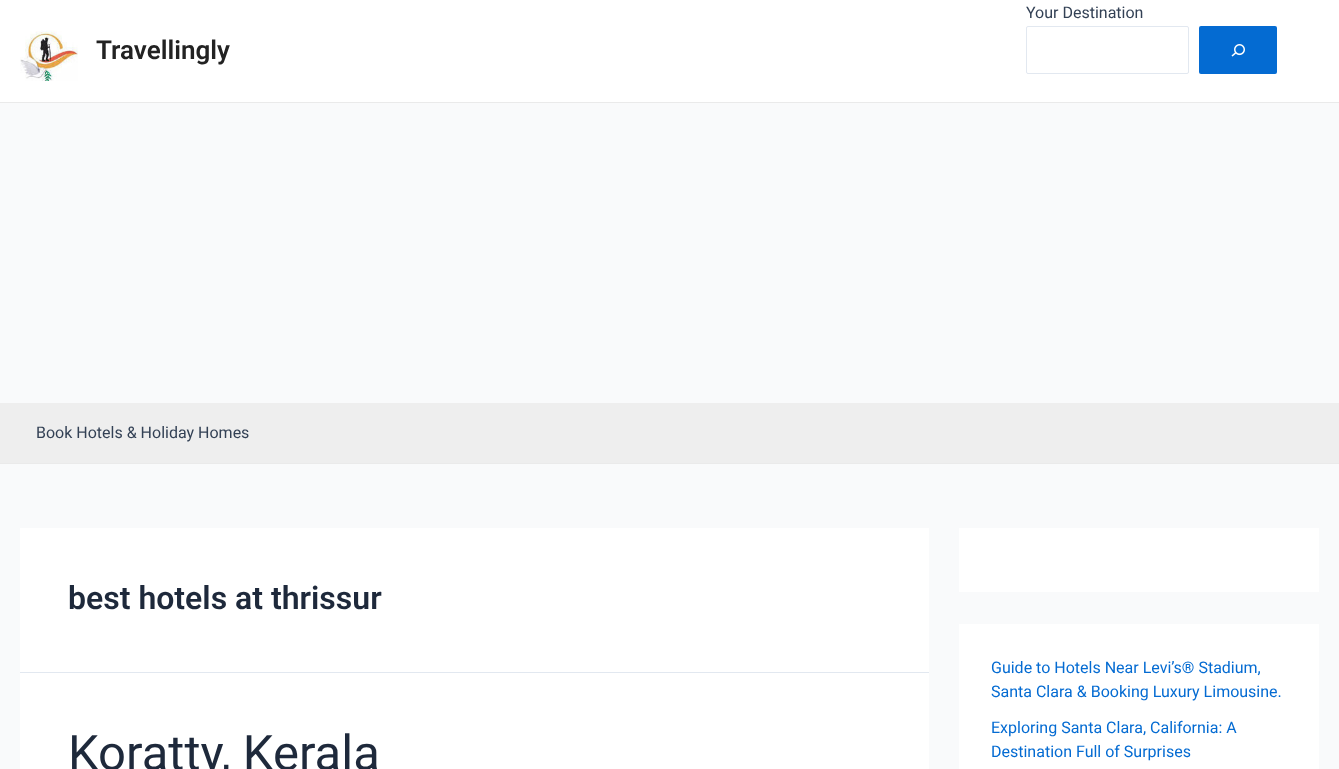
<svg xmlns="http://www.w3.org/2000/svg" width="1339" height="769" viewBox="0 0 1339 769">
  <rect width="100%" height="100%" fill="#f9fafb"/>
  <rect x="0" y="0" width="1339" height="102" fill="#ffffff"/>
  <rect x="0" y="102" width="1339" height="1" fill="#eaeaea"/>
  <text x="1026" y="18" font-family="Roboto" font-size="16" fill="#334155">Your Destination</text>
  <rect x="1026.5" y="26.5" width="162" height="47" rx="1.5" fill="none" stroke="#e2e8f0"/>
  <rect x="1199" y="26" width="78" height="48" rx="2" fill="#046bd2"/>
  <image x="1231" y="44" width="14" height="13" href="img1.png"/>
  <image x="20" y="30" width="58" height="51" href="img2.png"/>
  <text x="96" y="59" font-family="Roboto" font-size="26" font-weight="600" fill="#222222">Travellingly</text>
  <rect x="0" y="403" width="1339" height="60" fill="#eeeeee"/>
  <rect x="0" y="463" width="1339" height="1" fill="#eaeaea"/>
  <text x="36" y="438" font-family="Roboto" font-size="16" fill="#334155">Book Hotels &amp; Holiday Homes</text>
  <rect x="20" y="528" width="909" height="144" fill="#ffffff"/>
  <rect x="20" y="672" width="909" height="1" fill="#e2e8f0"/>
  <text x="68" y="609" font-family="Roboto" font-size="32" font-weight="600" fill="#1e293b">best hotels at thrissur</text>
  <rect x="20" y="673" width="909" height="96" fill="#ffffff"/>
  <text x="68" y="770" font-family="Roboto" font-size="49" fill="#1e293b">Koratty, Kerala</text>
  <rect x="959" y="528" width="360" height="64" fill="#ffffff"/>
  <rect x="959" y="624" width="360" height="145" fill="#ffffff"/>
  <text x="991" y="673" font-family="Roboto" font-size="16" fill="#046bd2">Guide to Hotels Near Levi’s® Stadium,</text>
  <text x="991" y="697" font-family="Roboto" font-size="16" fill="#046bd2">Santa Clara &amp; Booking Luxury Limousine.</text>
  <text x="991" y="733" font-family="Roboto" font-size="16" fill="#046bd2">Exploring Santa Clara, California: A</text>
  <text x="991" y="757" font-family="Roboto" font-size="16" fill="#046bd2">Destination Full of Surprises</text>
</svg>
